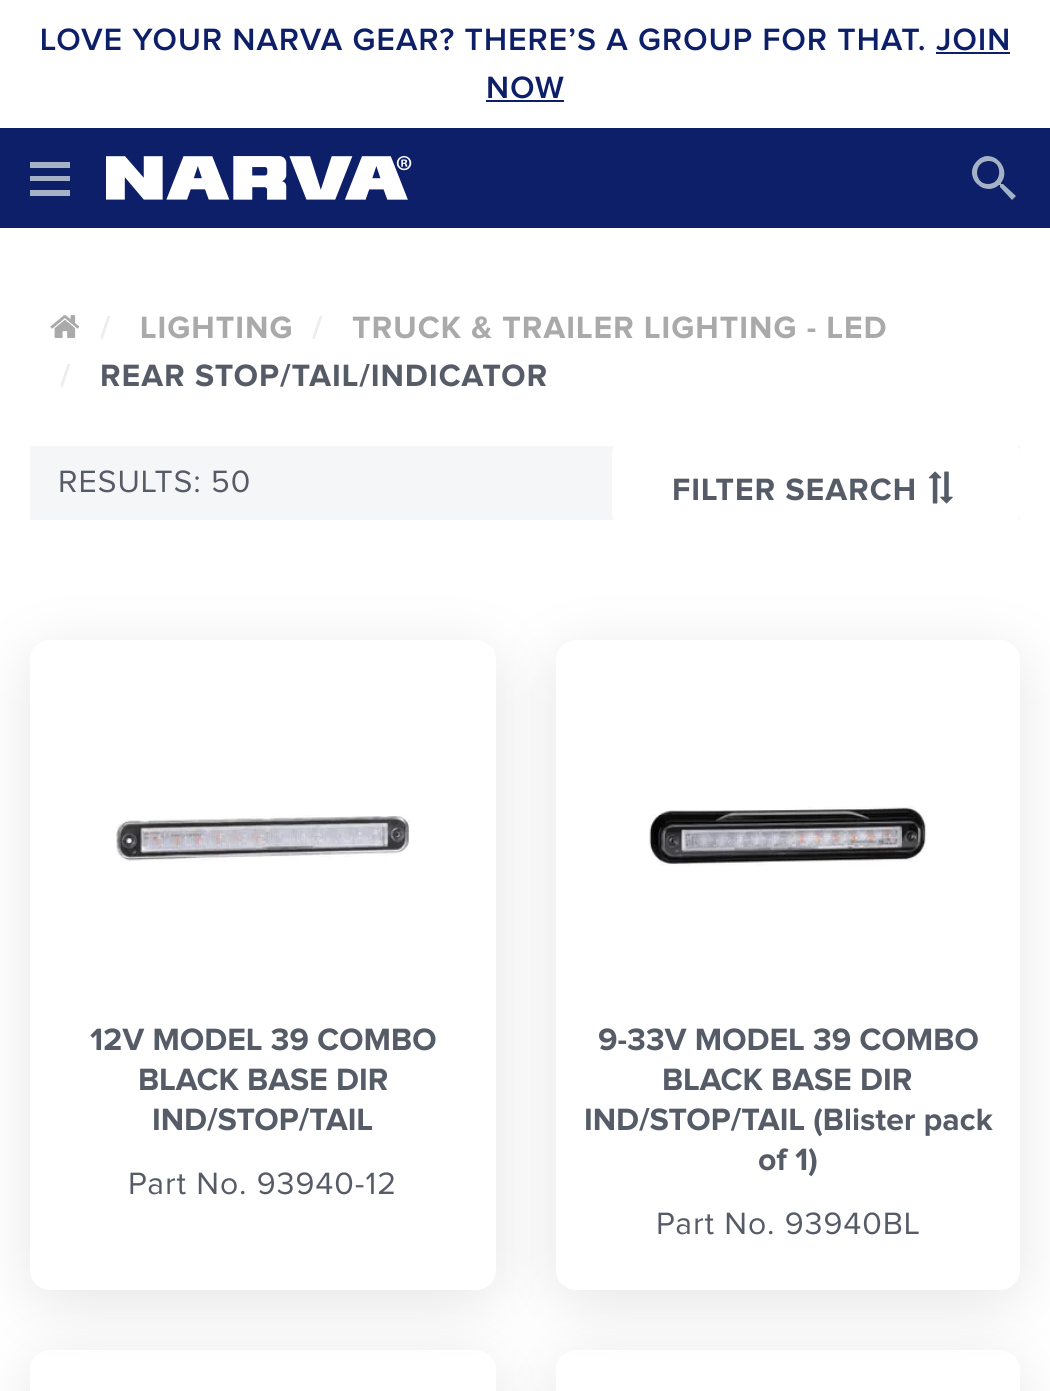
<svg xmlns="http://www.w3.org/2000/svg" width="1050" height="1391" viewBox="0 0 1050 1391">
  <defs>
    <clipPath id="clip1"><path d="M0 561H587V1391H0ZM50 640H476C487 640 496 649 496 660V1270C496 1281 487 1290 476 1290H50C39 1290 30 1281 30 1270V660C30 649 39 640 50 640Z" clip-rule="evenodd"/></clipPath>
    <filter id="blur1" x="-50%" y="-200%" width="200%" height="500%"><feGaussianBlur stdDeviation="30"/></filter>
    <clipPath id="clip2"><path d="M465 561H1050V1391H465ZM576 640H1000C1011 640 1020 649 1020 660V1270C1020 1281 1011 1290 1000 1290H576C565 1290 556 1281 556 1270V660C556 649 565 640 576 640Z" clip-rule="evenodd"/></clipPath>
    <clipPath id="clip3"><path d="M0 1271H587V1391H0ZM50 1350H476C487 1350 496 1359 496 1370V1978C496 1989 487 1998 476 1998H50C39 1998 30 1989 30 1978V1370C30 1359 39 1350 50 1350Z" clip-rule="evenodd"/></clipPath>
    <clipPath id="clip4"><path d="M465 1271H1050V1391H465ZM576 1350H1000C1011 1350 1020 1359 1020 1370V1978C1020 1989 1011 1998 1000 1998H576C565 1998 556 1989 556 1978V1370C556 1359 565 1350 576 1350Z" clip-rule="evenodd"/></clipPath>
  </defs>
  <rect width="100%" height="100%" fill="#ffffff"/>
  <image x="42" y="28" width="882" height="23" href="img1.png"/>
  <image x="936" y="28" width="72" height="23" href="img2.png"/>
  <rect x="936" y="52" width="74" height="2" fill="#0d1f69"/>
  <image x="488" y="76" width="76" height="23" href="img3.png"/>
  <rect x="486" y="100" width="78" height="2" fill="#0d1f69"/>
  <rect x="0" y="128" width="1050" height="100" fill="#0d1f69"/>
  <rect x="30" y="162" width="40" height="6" fill="#a5b1c4"/>
  <rect x="30" y="176" width="40" height="5" fill="#a5b1c4"/>
  <rect x="30" y="190" width="40" height="6" fill="#a5b1c4"/>
  <image x="106" y="156" width="306" height="44" href="img4.png"/>
  <path d="M1003 184H1001V183C1013 168 991 146 977 161C962 176 984 198 999 185H1000V187L1012 200L1016 196ZM988 184C974 184 973 162 988 161C1003 160 1003 184 988 184Z" fill="#a5b1c4"/>
  <image x="50" y="315" width="30" height="23" href="img5.png"/>
  <path d="M103 338.5L110.5 316H107.5L100 338.5Z" fill="#eeeeee"/>
  <image x="141" y="316" width="150" height="23" href="img6.png"/>
  <path d="M315 338.5L322.5 316H319.5L312 338.5Z" fill="#eeeeee"/>
  <image x="352" y="316" width="534" height="23" href="img7.png"/>
  <path d="M63 386.5L70.5 364H67.5L60 386.5Z" fill="#eeeeee"/>
  <image x="102" y="364" width="444" height="23" href="img8.png"/>
  <rect x="30" y="446" width="990" height="74" fill="#f5f6f8"/>
  <rect x="612" y="442" width="408" height="82" rx="10" fill="#ffffff"/>
  <image x="674" y="478" width="240" height="23" href="img9.png"/>
  <image x="928" y="471" width="25" height="33" href="img10.png"/>
  <image x="60" y="470" width="189" height="23" href="img11.png"/>
  <g clip-path="url(#clip1)">
    <rect x="30" y="652" width="466" height="650" rx="20" fill="#000000" fill-opacity="0.1" filter="url(#blur1)"/>
  </g>
  <image x="116" y="815" width="294" height="47" href="img12.png"/>
  <image x="90" y="1028" width="346" height="23" href="img13.png"/>
  <image x="140" y="1068" width="248" height="23" href="img14.png"/>
  <image x="154" y="1108" width="218" height="23" href="img15.png"/>
  <image x="130" y="1172" width="264" height="23" href="img16.png"/>
  <g clip-path="url(#clip2)">
    <rect x="556" y="652" width="464" height="650" rx="20" fill="#000000" fill-opacity="0.1" filter="url(#blur1)"/>
  </g>
  <image x="649" y="806" width="278" height="60" href="img17.png"/>
  <image x="599" y="1028" width="379" height="23" href="img18.png"/>
  <image x="664" y="1068" width="248" height="23" href="img14.png"/>
  <image x="586" y="1108" width="407" height="29" href="img19.png"/>
  <image x="759" y="1148" width="58" height="29" href="img20.png"/>
  <image x="658" y="1212" width="261" height="23" href="img21.png"/>
  <g clip-path="url(#clip3)">
    <rect x="30" y="1362" width="466" height="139" rx="20" fill="#000000" fill-opacity="0.1" filter="url(#blur1)"/>
  </g>
  <g clip-path="url(#clip4)">
    <rect x="556" y="1362" width="464" height="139" rx="20" fill="#000000" fill-opacity="0.1" filter="url(#blur1)"/>
  </g>
</svg>
